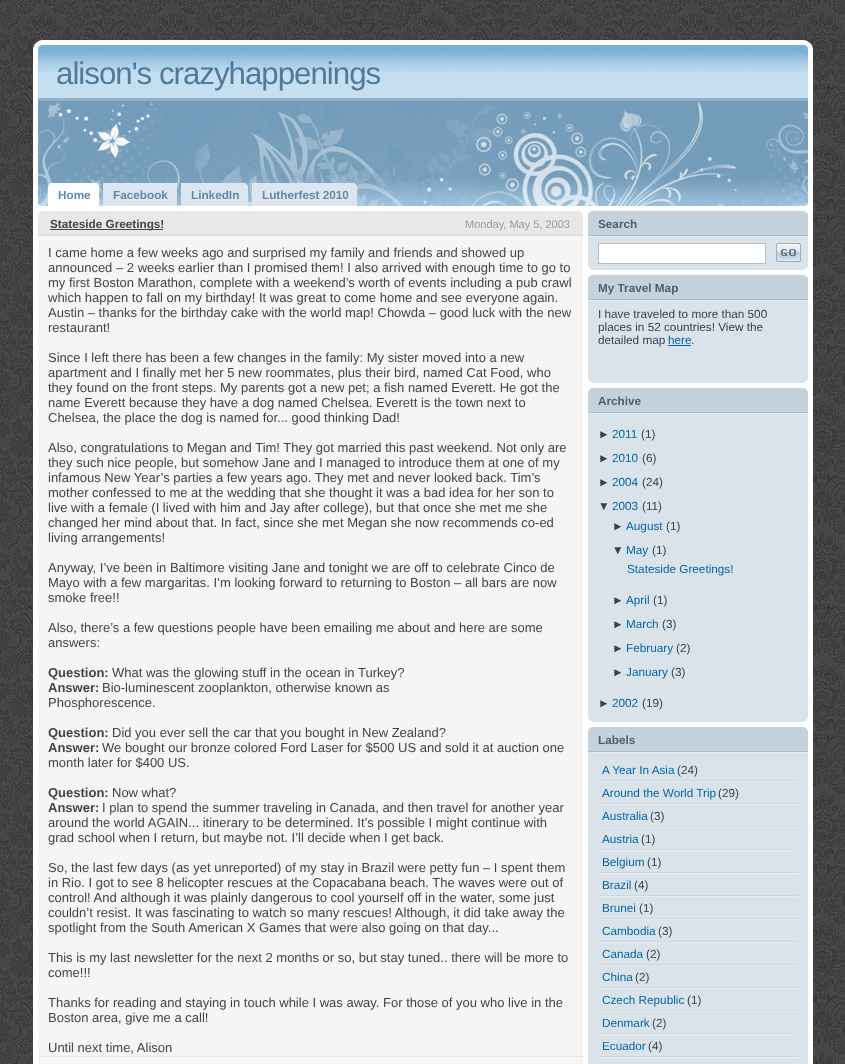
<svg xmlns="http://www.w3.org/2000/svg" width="845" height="1064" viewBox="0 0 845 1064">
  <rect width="100%" height="100%" fill="#ffffff"/>
  <image x="0" y="0" width="845" height="1064" href="img1.png"/>
  <image x="33" y="40" width="780" height="10" href="img2.png"/>
  <rect x="33" y="50" width="780" height="1014" fill="#ffffff"/>
  <rect x="38" y="73" width="770" height="25" fill="#c5def0"/>
  <image x="38" y="50" width="770" height="23" href="img3.png"/>
  <text x="56" y="84" font-family="Liberation Sans" font-size="31.25" letter-spacing="-1" fill="#507a9a">alison's crazyhappenings</text>
  <rect x="38" y="98" width="770" height="3" fill="#90b0c9"/>
  <image x="38" y="101" width="770" height="105" href="img4.png"/>
  <image x="48" y="183" width="41" height="23" href="img5.png"/>
  <image x="89" y="183" width="11" height="23" href="img6.png"/>
  <text x="58" y="199" font-family="Liberation Sans" font-size="11.75" font-weight="bold" fill="#608aaa">Home</text>
  <rect x="103" y="183" width="74" height="23" fill="#dde6ee"/>
  <text x="113" y="199" font-family="Liberation Sans" font-size="11.75" font-weight="bold" fill="#608aaa">Facebook</text>
  <rect x="181" y="183" width="40" height="23" fill="#dde6ee"/>
  <image x="221" y="183" width="28" height="23" href="img7.png"/>
  <text x="191" y="199" font-family="Liberation Sans" font-size="11.75" font-weight="bold" fill="#608aaa">LinkedIn</text>
  <rect x="252" y="183" width="40" height="23" fill="#dde6ee"/>
  <image x="292" y="183" width="66" height="23" href="img8.png"/>
  <text x="262" y="199" font-family="Liberation Sans" font-size="11.75" font-weight="bold" fill="#608aaa">Lutherfest 2010</text>
  <rect x="38" y="214" width="545" height="21" fill="#e8e8e8"/>
  <image x="38" y="211" width="545" height="3" href="img9.png"/>
  <rect x="50" y="229" width="113" height="1" fill="#444444"/>
  <text x="50" y="228" font-family="Liberation Sans" font-size="11.75" font-weight="bold" fill="#444444">Stateside Greetings!</text>
  <text x="465" y="228" font-family="Liberation Sans" font-size="11" fill="#999999">Monday, May 5, 2003</text>
  <rect x="38" y="237" width="545" height="819" fill="#f5f5f5"/>
  <image x="38" y="235" width="545" height="2" href="img10.png"/>
  <text x="48" y="257" font-family="Liberation Sans" font-size="13" fill="#444444">I came home a few weeks ago and surprised my family and friends and showed up</text>
  <text x="48" y="272" font-family="Liberation Sans" font-size="13" fill="#444444">announced – 2 weeks earlier than I promised them! I also arrived with enough time to go to</text>
  <text x="48" y="287" font-family="Liberation Sans" font-size="13" fill="#444444">my first Boston Marathon, complete with a weekend’s worth of events including a pub crawl</text>
  <text x="48" y="302" font-family="Liberation Sans" font-size="13" fill="#444444">which happen to fall on my birthday! It was great to come home and see everyone again.</text>
  <text x="48" y="317" font-family="Liberation Sans" font-size="13" fill="#444444">Austin – thanks for the birthday cake with the world map! Chowda – good luck with the new</text>
  <text x="48" y="332" font-family="Liberation Sans" font-size="13" fill="#444444">restaurant!</text>
  <text x="48" y="362" font-family="Liberation Sans" font-size="13" fill="#444444">Since I left there has been a few changes in the family: My sister moved into a new</text>
  <text x="48" y="377" font-family="Liberation Sans" font-size="13" fill="#444444">apartment and I finally met her 5 new roommates, plus their bird, named Cat Food, who</text>
  <text x="48" y="392" font-family="Liberation Sans" font-size="13" fill="#444444">they found on the front steps. My parents got a new pet; a fish named Everett. He got the</text>
  <text x="48" y="407" font-family="Liberation Sans" font-size="13" fill="#444444">name Everett because they have a dog named Chelsea. Everett is the town next to</text>
  <text x="48" y="422" font-family="Liberation Sans" font-size="13" fill="#444444">Chelsea, the place the dog is named for... good thinking Dad!</text>
  <text x="48" y="452" font-family="Liberation Sans" font-size="13" fill="#444444">Also, congratulations to Megan and Tim! They got married this past weekend. Not only are</text>
  <text x="48" y="467" font-family="Liberation Sans" font-size="13" fill="#444444">they such nice people, but somehow Jane and I managed to introduce them at one of my</text>
  <text x="48" y="482" font-family="Liberation Sans" font-size="13" fill="#444444">infamous New Year’s parties a few years ago. They met and never looked back. Tim’s</text>
  <text x="48" y="497" font-family="Liberation Sans" font-size="13" fill="#444444">mother confessed to me at the wedding that she thought it was a bad idea for her son to</text>
  <text x="48" y="512" font-family="Liberation Sans" font-size="13" fill="#444444">live with a female (I lived with him and Jay after college), but that once she met me she</text>
  <text x="48" y="527" font-family="Liberation Sans" font-size="13" fill="#444444">changed her mind about that. In fact, since she met Megan she now recommends co-ed</text>
  <text x="48" y="542" font-family="Liberation Sans" font-size="13" fill="#444444">living arrangements!</text>
  <text x="48" y="572" font-family="Liberation Sans" font-size="13" fill="#444444">Anyway, I’ve been in Baltimore visiting Jane and tonight we are off to celebrate Cinco de</text>
  <text x="48" y="587" font-family="Liberation Sans" font-size="13" fill="#444444">Mayo with a few margaritas. I’m looking forward to returning to Boston – all bars are now</text>
  <text x="48" y="602" font-family="Liberation Sans" font-size="13" fill="#444444">smoke free!!</text>
  <text x="48" y="632" font-family="Liberation Sans" font-size="13" fill="#444444">Also, there’s a few questions people have been emailing me about and here are some</text>
  <text x="48" y="647" font-family="Liberation Sans" font-size="13" fill="#444444">answers:</text>
  <text x="48" y="677" font-family="Liberation Sans" font-size="13" font-weight="bold" fill="#444444">Question:</text>
  <text x="112" y="677" font-family="Liberation Sans" font-size="13" fill="#444444">What was the glowing stuff in the ocean in Turkey?</text>
  <text x="48" y="692" font-family="Liberation Sans" font-size="13" font-weight="bold" fill="#444444">Answer:</text>
  <text x="102" y="692" font-family="Liberation Sans" font-size="13" fill="#444444">Bio-luminescent zooplankton, otherwise known as</text>
  <text x="48" y="707" font-family="Liberation Sans" font-size="13" fill="#444444">Phosphorescence.</text>
  <text x="48" y="737" font-family="Liberation Sans" font-size="13" font-weight="bold" fill="#444444">Question:</text>
  <text x="112" y="737" font-family="Liberation Sans" font-size="13" fill="#444444">Did you ever sell the car that you bought in New Zealand?</text>
  <text x="48" y="752" font-family="Liberation Sans" font-size="13" font-weight="bold" fill="#444444">Answer:</text>
  <text x="102" y="752" font-family="Liberation Sans" font-size="13" fill="#444444">We bought our bronze colored Ford Laser for $500 US and sold it at auction one</text>
  <text x="48" y="767" font-family="Liberation Sans" font-size="13" fill="#444444">month later for $400 US.</text>
  <text x="48" y="797" font-family="Liberation Sans" font-size="13" font-weight="bold" fill="#444444">Question:</text>
  <text x="112" y="797" font-family="Liberation Sans" font-size="13" fill="#444444">Now what?</text>
  <text x="48" y="812" font-family="Liberation Sans" font-size="13" font-weight="bold" fill="#444444">Answer:</text>
  <text x="102" y="812" font-family="Liberation Sans" font-size="13" fill="#444444">I plan to spend the summer traveling in Canada, and then travel for another year</text>
  <text x="48" y="827" font-family="Liberation Sans" font-size="13" fill="#444444">around the world AGAIN... itinerary to be determined. It’s possible I might continue with</text>
  <text x="48" y="842" font-family="Liberation Sans" font-size="13" fill="#444444">grad school when I return, but maybe not. I’ll decide when I get back.</text>
  <text x="48" y="872" font-family="Liberation Sans" font-size="13" fill="#444444">So, the last few days (as yet unreported) of my stay in Brazil were petty fun – I spent them</text>
  <text x="48" y="887" font-family="Liberation Sans" font-size="13" fill="#444444">in Rio. I got to see 8 helicopter rescues at the Copacabana beach. The waves were out of</text>
  <text x="48" y="902" font-family="Liberation Sans" font-size="13" fill="#444444">control! And although it was plainly dangerous to cool yourself off in the water, some just</text>
  <text x="48" y="917" font-family="Liberation Sans" font-size="13" fill="#444444">couldn’t resist. It was fascinating to watch so many rescues! Although, it did take away the</text>
  <text x="48" y="932" font-family="Liberation Sans" font-size="13" fill="#444444">spotlight from the South American X Games that were also going on that day...</text>
  <text x="48" y="962" font-family="Liberation Sans" font-size="13" fill="#444444">This is my last newsletter for the next 2 months or so, but stay tuned.. there will be more to</text>
  <text x="48" y="977" font-family="Liberation Sans" font-size="13" fill="#444444">come!!!</text>
  <text x="48" y="1007" font-family="Liberation Sans" font-size="13" fill="#444444">Thanks for reading and staying in touch while I was away. For those of you who live in the</text>
  <text x="48" y="1022" font-family="Liberation Sans" font-size="13" fill="#444444">Boston area, give me a call!</text>
  <text x="48" y="1052" font-family="Liberation Sans" font-size="13" fill="#444444">Until next time, Alison</text>
  <rect x="38" y="1057" width="545" height="7" fill="#f5f5f5"/>
  <rect x="38" y="1056" width="545" height="1" fill="#e5e5e5"/>
  <image x="588" y="265" width="220" height="5" href="img11.png"/>
  <rect x="588" y="215" width="220" height="20" fill="#c6d2db"/>
  <image x="588" y="211" width="220" height="4" href="img12.png"/>
  <text x="598" y="228" font-family="Liberation Sans" font-size="11.75" font-weight="bold" fill="#505e69">Search</text>
  <rect x="588" y="237" width="220" height="28" fill="#dae3e9"/>
  <image x="588" y="235" width="220" height="2" href="img13.png"/>
  <rect x="598.5" y="243.5" width="167" height="20" fill="#ffffff" stroke="#bbbbbb"/>
  <image x="776" y="243" width="25" height="19" href="img14.png"/>
  <image x="588" y="378" width="220" height="5" href="img11.png"/>
  <rect x="588" y="279" width="220" height="20" fill="#c6d2db"/>
  <image x="588" y="275" width="220" height="4" href="img12.png"/>
  <text x="598" y="292" font-family="Liberation Sans" font-size="11.75" font-weight="bold" fill="#505e69">My Travel Map</text>
  <rect x="588" y="301" width="220" height="77" fill="#dae3e9"/>
  <image x="588" y="299" width="220" height="2" href="img13.png"/>
  <text x="598" y="318" font-family="Liberation Sans" font-size="11.75" fill="#334455">I have traveled to more than 500</text>
  <text x="598" y="331" font-family="Liberation Sans" font-size="11.75" fill="#334455">places in 52 countries! View the</text>
  <text x="598" y="344" font-family="Liberation Sans" font-size="11.75" fill="#334455">detailed map</text>
  <text x="668" y="344" font-family="Liberation Sans" font-size="11.75" fill="#0066aa">here</text>
  <rect x="668" y="345" width="23" height="1" fill="#0066aa"/>
  <text x="691" y="344" font-family="Liberation Sans" font-size="11.75" fill="#334455">.</text>
  <image x="588" y="717" width="220" height="5" href="img11.png"/>
  <rect x="588" y="392" width="220" height="20" fill="#c6d2db"/>
  <image x="588" y="388" width="220" height="4" href="img12.png"/>
  <text x="598" y="405" font-family="Liberation Sans" font-size="11.75" font-weight="bold" fill="#505e69">Archive</text>
  <rect x="588" y="414" width="220" height="303" fill="#dae3e9"/>
  <image x="588" y="412" width="220" height="2" href="img13.png"/>
  <text x="598" y="438" font-family="Liberation Sans" font-size="11.75" fill="#334455">►</text>
  <text x="612" y="438" font-family="Liberation Sans" font-size="11.75" fill="#0066aa">2011</text>
  <text x="641" y="438" font-family="Liberation Sans" font-size="11.75" fill="#334455">(1)</text>
  <text x="598" y="462" font-family="Liberation Sans" font-size="11.75" fill="#334455">►</text>
  <text x="612" y="462" font-family="Liberation Sans" font-size="11.75" fill="#0066aa">2010</text>
  <text x="642" y="462" font-family="Liberation Sans" font-size="11.75" fill="#334455">(6)</text>
  <text x="598" y="486" font-family="Liberation Sans" font-size="11.75" fill="#334455">►</text>
  <text x="612" y="486" font-family="Liberation Sans" font-size="11.75" fill="#0066aa">2004</text>
  <text x="642" y="486" font-family="Liberation Sans" font-size="11.75" fill="#334455">(24)</text>
  <text x="598" y="510" font-family="Liberation Sans" font-size="11.75" fill="#334455">▼</text>
  <text x="612" y="510" font-family="Liberation Sans" font-size="11.75" fill="#0066aa">2003</text>
  <text x="642" y="510" font-family="Liberation Sans" font-size="11.75" fill="#334455">(11)</text>
  <text x="612" y="530" font-family="Liberation Sans" font-size="11.75" fill="#334455">►</text>
  <text x="626" y="530" font-family="Liberation Sans" font-size="11.75" fill="#0066aa">August</text>
  <text x="666" y="530" font-family="Liberation Sans" font-size="11.75" fill="#334455">(1)</text>
  <text x="612" y="554" font-family="Liberation Sans" font-size="11.75" fill="#334455">▼</text>
  <text x="626" y="554" font-family="Liberation Sans" font-size="11.75" fill="#0066aa">May</text>
  <text x="652" y="554" font-family="Liberation Sans" font-size="11.75" fill="#334455">(1)</text>
  <text x="627" y="573" font-family="Liberation Sans" font-size="11.75" fill="#0066aa">Stateside Greetings!</text>
  <text x="612" y="604" font-family="Liberation Sans" font-size="11.75" fill="#334455">►</text>
  <text x="626" y="604" font-family="Liberation Sans" font-size="11.75" fill="#0066aa">April</text>
  <text x="653" y="604" font-family="Liberation Sans" font-size="11.75" fill="#334455">(1)</text>
  <text x="612" y="628" font-family="Liberation Sans" font-size="11.75" fill="#334455">►</text>
  <text x="626" y="628" font-family="Liberation Sans" font-size="11.75" fill="#0066aa">March</text>
  <text x="662" y="628" font-family="Liberation Sans" font-size="11.75" fill="#334455">(3)</text>
  <text x="612" y="652" font-family="Liberation Sans" font-size="11.75" fill="#334455">►</text>
  <text x="626" y="652" font-family="Liberation Sans" font-size="11.75" fill="#0066aa">February</text>
  <text x="676" y="652" font-family="Liberation Sans" font-size="11.75" fill="#334455">(2)</text>
  <text x="612" y="676" font-family="Liberation Sans" font-size="11.75" fill="#334455">►</text>
  <text x="626" y="676" font-family="Liberation Sans" font-size="11.75" fill="#0066aa">January</text>
  <text x="671" y="676" font-family="Liberation Sans" font-size="11.75" fill="#334455">(3)</text>
  <text x="598" y="707" font-family="Liberation Sans" font-size="11.75" fill="#334455">►</text>
  <text x="612" y="707" font-family="Liberation Sans" font-size="11.75" fill="#0066aa">2002</text>
  <text x="642" y="707" font-family="Liberation Sans" font-size="11.75" fill="#334455">(19)</text>
  <rect x="588" y="731" width="220" height="20" fill="#c6d2db"/>
  <image x="588" y="727" width="220" height="4" href="img12.png"/>
  <text x="598" y="744" font-family="Liberation Sans" font-size="11.75" font-weight="bold" fill="#505e69">Labels</text>
  <rect x="588" y="753" width="220" height="311" fill="#dae3e9"/>
  <image x="588" y="751" width="220" height="2" href="img13.png"/>
  <rect x="598" y="780" width="200" height="1" fill="#d0d8de"/>
  <text x="602" y="774" font-family="Liberation Sans" font-size="11.75" fill="#0066aa">A Year In Asia</text>
  <text x="677" y="774" font-family="Liberation Sans" font-size="11.75" fill="#334455">(24)</text>
  <rect x="598" y="781" width="200" height="1" fill="#e2ecf2"/>
  <rect x="598" y="803" width="200" height="1" fill="#d0d8de"/>
  <text x="602" y="797" font-family="Liberation Sans" font-size="11.75" fill="#0066aa">Around the World Trip</text>
  <text x="718" y="797" font-family="Liberation Sans" font-size="11.75" fill="#334455">(29)</text>
  <rect x="598" y="804" width="200" height="1" fill="#e2ecf2"/>
  <rect x="598" y="826" width="200" height="1" fill="#d0d8de"/>
  <text x="602" y="820" font-family="Liberation Sans" font-size="11.75" fill="#0066aa">Australia</text>
  <text x="650" y="820" font-family="Liberation Sans" font-size="11.75" fill="#334455">(3)</text>
  <rect x="598" y="827" width="200" height="1" fill="#e2ecf2"/>
  <rect x="598" y="849" width="200" height="1" fill="#d0d8de"/>
  <text x="602" y="843" font-family="Liberation Sans" font-size="11.75" fill="#0066aa">Austria</text>
  <text x="641" y="843" font-family="Liberation Sans" font-size="11.75" fill="#334455">(1)</text>
  <rect x="598" y="850" width="200" height="1" fill="#e2ecf2"/>
  <rect x="598" y="872" width="200" height="1" fill="#d0d8de"/>
  <text x="602" y="866" font-family="Liberation Sans" font-size="11.75" fill="#0066aa">Belgium</text>
  <text x="647" y="866" font-family="Liberation Sans" font-size="11.75" fill="#334455">(1)</text>
  <rect x="598" y="873" width="200" height="1" fill="#e2ecf2"/>
  <rect x="598" y="895" width="200" height="1" fill="#d0d8de"/>
  <text x="602" y="889" font-family="Liberation Sans" font-size="11.75" fill="#0066aa">Brazil</text>
  <text x="634" y="889" font-family="Liberation Sans" font-size="11.75" fill="#334455">(4)</text>
  <rect x="598" y="896" width="200" height="1" fill="#e2ecf2"/>
  <rect x="598" y="918" width="200" height="1" fill="#d0d8de"/>
  <text x="602" y="912" font-family="Liberation Sans" font-size="11.75" fill="#0066aa">Brunei</text>
  <text x="639" y="912" font-family="Liberation Sans" font-size="11.75" fill="#334455">(1)</text>
  <rect x="598" y="919" width="200" height="1" fill="#e2ecf2"/>
  <rect x="598" y="941" width="200" height="1" fill="#d0d8de"/>
  <text x="602" y="935" font-family="Liberation Sans" font-size="11.75" fill="#0066aa">Cambodia</text>
  <text x="658" y="935" font-family="Liberation Sans" font-size="11.75" fill="#334455">(3)</text>
  <rect x="598" y="942" width="200" height="1" fill="#e2ecf2"/>
  <rect x="598" y="964" width="200" height="1" fill="#d0d8de"/>
  <text x="602" y="958" font-family="Liberation Sans" font-size="11.75" fill="#0066aa">Canada</text>
  <text x="646" y="958" font-family="Liberation Sans" font-size="11.75" fill="#334455">(2)</text>
  <rect x="598" y="965" width="200" height="1" fill="#e2ecf2"/>
  <rect x="598" y="987" width="200" height="1" fill="#d0d8de"/>
  <text x="602" y="981" font-family="Liberation Sans" font-size="11.75" fill="#0066aa">China</text>
  <text x="635" y="981" font-family="Liberation Sans" font-size="11.75" fill="#334455">(2)</text>
  <rect x="598" y="988" width="200" height="1" fill="#e2ecf2"/>
  <rect x="598" y="1010" width="200" height="1" fill="#d0d8de"/>
  <text x="602" y="1004" font-family="Liberation Sans" font-size="11.75" fill="#0066aa">Czech Republic</text>
  <text x="687" y="1004" font-family="Liberation Sans" font-size="11.75" fill="#334455">(1)</text>
  <rect x="598" y="1011" width="200" height="1" fill="#e2ecf2"/>
  <rect x="598" y="1033" width="200" height="1" fill="#d0d8de"/>
  <text x="602" y="1027" font-family="Liberation Sans" font-size="11.75" fill="#0066aa">Denmark</text>
  <text x="652" y="1027" font-family="Liberation Sans" font-size="11.75" fill="#334455">(2)</text>
  <rect x="598" y="1034" width="200" height="1" fill="#e2ecf2"/>
  <rect x="598" y="1056" width="200" height="1" fill="#d0d8de"/>
  <text x="602" y="1050" font-family="Liberation Sans" font-size="11.75" fill="#0066aa">Ecuador</text>
  <text x="648" y="1050" font-family="Liberation Sans" font-size="11.75" fill="#334455">(4)</text>
  <rect x="598" y="1057" width="200" height="1" fill="#e2ecf2"/>
</svg>
